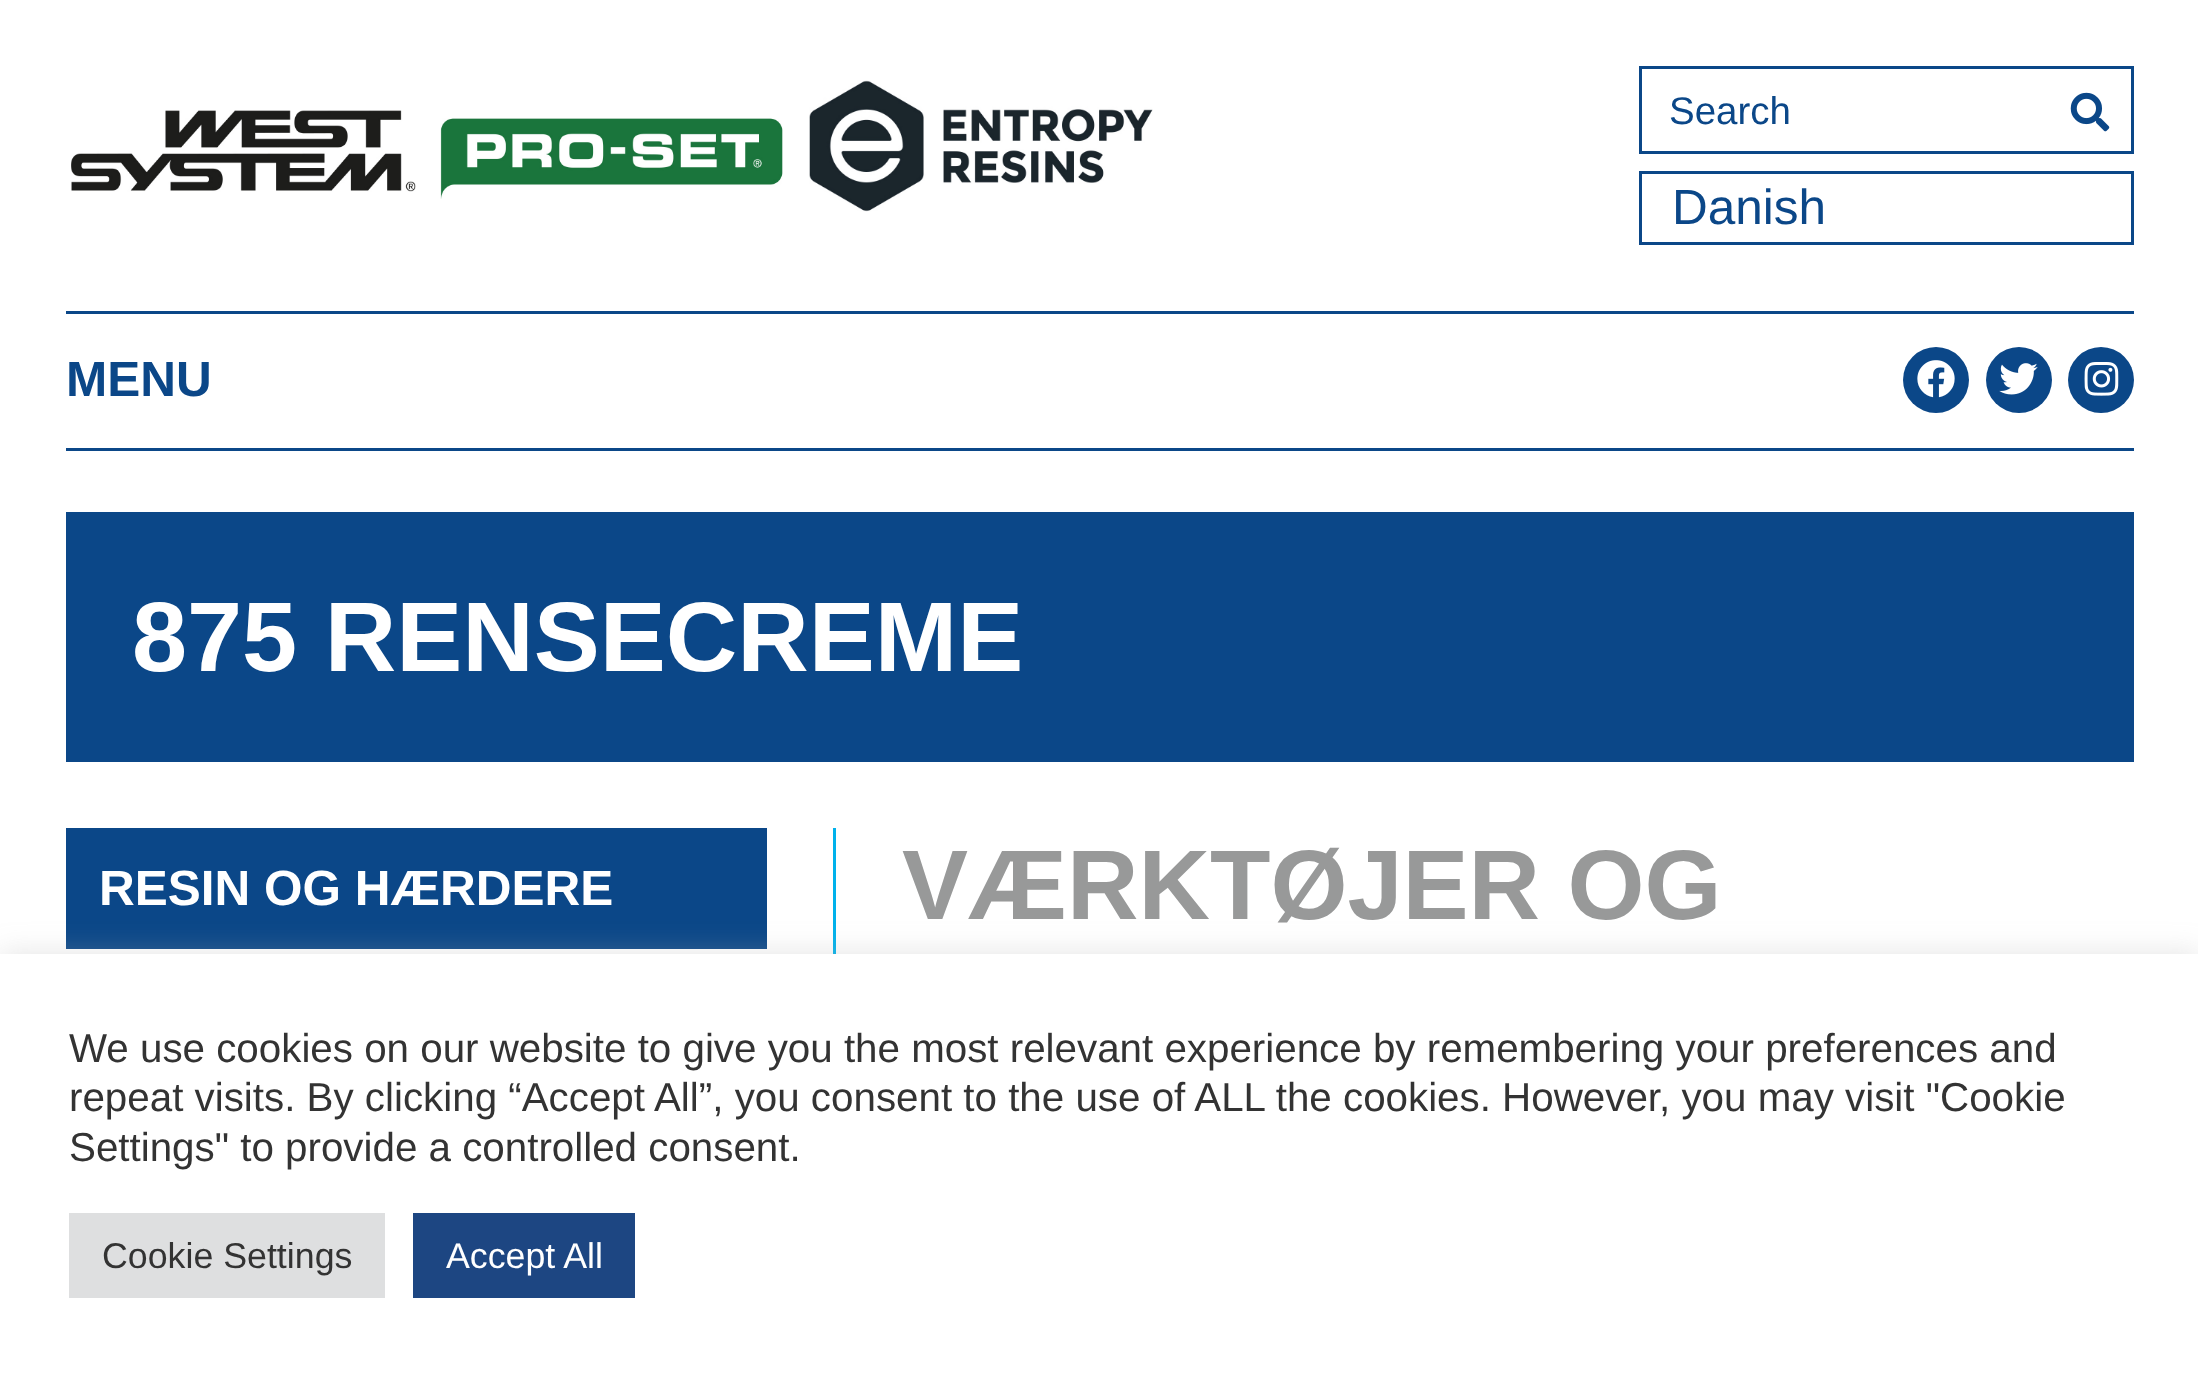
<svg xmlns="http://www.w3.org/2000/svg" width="2198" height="1378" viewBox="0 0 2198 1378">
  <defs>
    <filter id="blur1" x="-50%" y="-200%" width="200%" height="500%"><feGaussianBlur stdDeviation="14"/></filter>
  </defs>
  <rect width="100%" height="100%" fill="#ffffff"/>
  <rect x="66" y="311" width="2068" height="3" fill="#0b4788"/>
  <image x="71" y="110" width="345" height="82" href="img1.png"/>
  <image x="440" y="118" width="343" height="81" href="img2.png"/>
  <image x="809" y="80" width="344" height="132" href="img3.png"/>
  <rect x="1640.5" y="67.5" width="492" height="85" fill="none" stroke="#0b4788" stroke-width="3"/>
  <text x="1669" y="124" font-family="Liberation Sans" font-size="38.5" fill="#0b4788">Search</text>
  <image x="2070" y="92" width="40" height="40" href="img4.png"/>
  <rect x="1640.5" y="172.5" width="492" height="71" fill="none" stroke="#0b4788" stroke-width="3"/>
  <text x="1672" y="224" font-family="Liberation Sans" font-size="49.5" fill="#0b4788">Danish</text>
  <text x="66" y="396" font-family="Liberation Sans" font-size="49.5" font-weight="bold" fill="#0b4788">MENU</text>
  <circle cx="1936" cy="380" r="33" fill="#0b4788"/>
  <image x="1917" y="360" width="38" height="38" href="img5.png"/>
  <circle cx="2019" cy="380" r="33" fill="#0b4788"/>
  <image x="1999" y="363" width="39" height="32" href="img6.png"/>
  <circle cx="2101" cy="380" r="33" fill="#0b4788"/>
  <image x="2084" y="362" width="35" height="34" href="img7.png"/>
  <rect x="66" y="512" width="2068" height="250" fill="#0b4788"/>
  <rect x="66" y="448" width="2068" height="3" fill="#0b4788"/>
  <text x="132" y="671" font-family="Liberation Sans" font-size="99" font-weight="bold" fill="#ffffff">875 RENSECREME</text>
  <rect x="833" y="828" width="3" height="126" fill="#00b1eb"/>
  <rect x="66" y="828" width="701" height="121" fill="#0b4788"/>
  <text x="99" y="905" font-family="Liberation Sans" font-size="49.5" font-weight="bold" fill="#ffffff">RESIN OG HÆRDERE</text>
  <text x="902" y="919" font-family="Liberation Sans" font-size="99" font-weight="bold" fill="#989999">VÆRKTØJER OG</text>
  <rect x="0" y="952" width="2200" height="426" fill="#acabab" fill-opacity="0.3" filter="url(#blur1)"/>
  <rect x="0" y="954" width="2198" height="424" fill="#ffffff"/>
  <text x="69" y="1062" font-family="Liberation Sans" font-size="40.35" fill="#333333">We use cookies on our website to give you the most relevant experience by remembering your preferences and</text>
  <text x="69" y="1111" font-family="Liberation Sans" font-size="40.35" fill="#333333">repeat visits. By clicking “Accept All”, you consent to the use of ALL the cookies. However, you may visit "Cookie</text>
  <text x="69" y="1161" font-family="Liberation Sans" font-size="40.35" fill="#333333">Settings" to provide a controlled consent.</text>
  <rect x="69" y="1213" width="316" height="85" fill="#dedfe0"/>
  <text x="102" y="1268" font-family="Liberation Sans" font-size="35.75" fill="#333333">Cookie Settings</text>
  <rect x="413" y="1213" width="222" height="85" fill="#1d4682"/>
  <text x="446" y="1268" font-family="Liberation Sans" font-size="35.75" fill="#ffffff">Accept All</text>
</svg>
